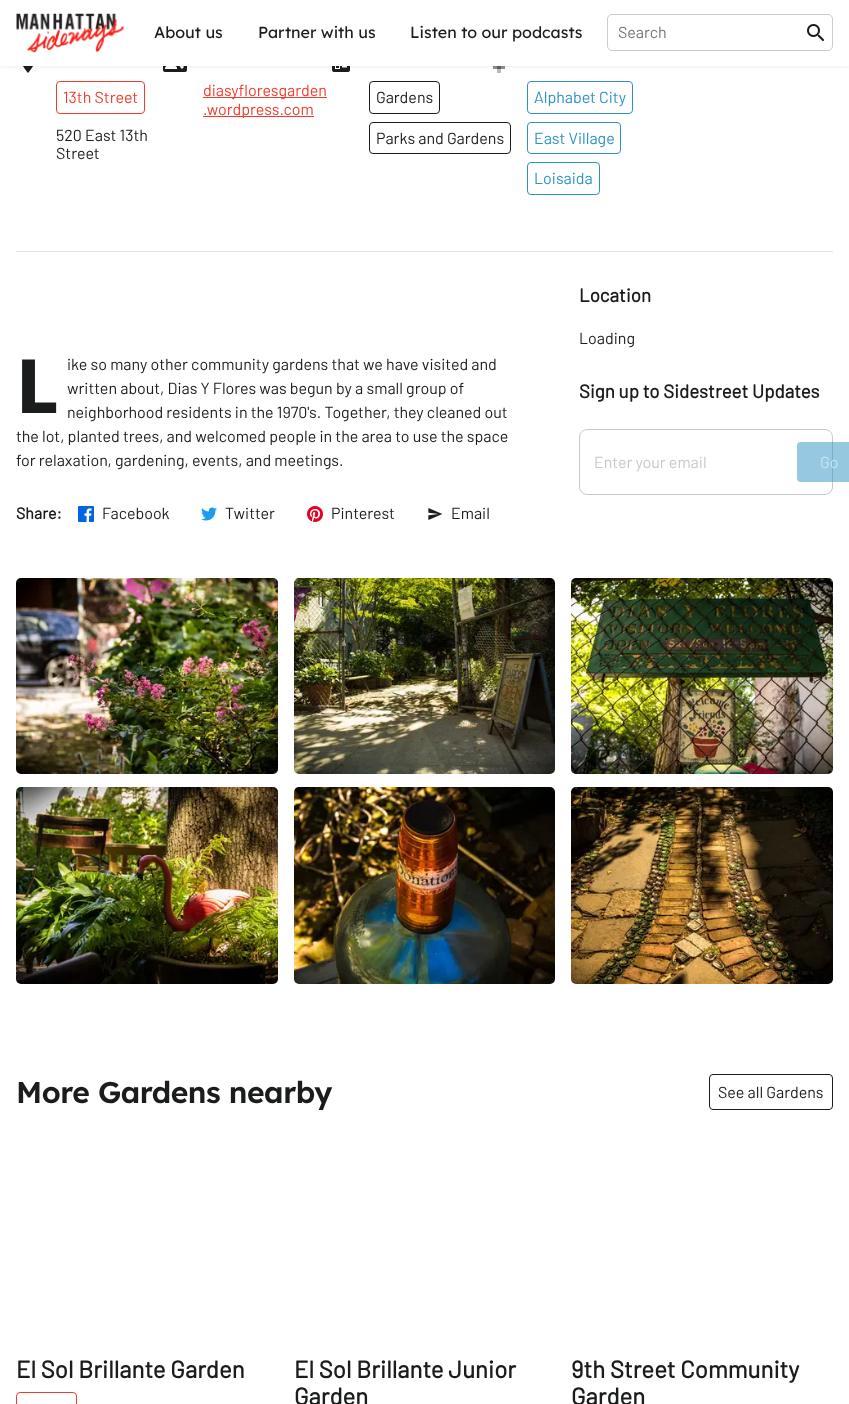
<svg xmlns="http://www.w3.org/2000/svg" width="849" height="1404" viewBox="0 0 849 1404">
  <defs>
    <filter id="blur1" x="-50%" y="-200%" width="200%" height="500%"><feGaussianBlur stdDeviation="2"/></filter>
  </defs>
  <rect width="100%" height="100%" fill="#ffffff"/>
  <image x="23" y="66" width="10" height="7" href="img3.png"/>
  <image x="163" y="66" width="24" height="6" href="img4.png"/>
  <image x="332" y="66" width="18" height="6" href="img5.png"/>
  <image x="493" y="66" width="12" height="7" href="img6.png"/>
  <rect x="0" y="0" width="849" height="66" fill="#000000" fill-opacity="0.1" filter="url(#blur1)"/>
  <rect x="0" y="0" width="849" height="66" fill="#ffffff"/>
  <image x="16" y="13" width="108" height="40" href="img1.png"/>
  <text x="154" y="38" font-family="Lexend" font-size="16" fill="#1b1c1c">About us</text>
  <text x="258" y="38" font-family="Lexend" font-size="16" fill="#1b1c1c">Partner with us</text>
  <text x="410" y="38" font-family="Lexend" font-size="16" fill="#1b1c1c">Listen to our podcasts</text>
  <rect x="607.5" y="14.5" width="225" height="36" rx="4.5" fill="none" stroke="#cccccc"/>
  <text x="618" y="38" font-family="Barlow" font-size="16" fill="#757575">Search</text>
  <image x="807" y="24" width="17" height="17" href="img2.png"/>
  <rect x="16" y="251" width="817" height="1" fill="#e4e4e4"/>
  <rect x="56.5" y="81.5" width="88" height="32" rx="3.5" fill="none" stroke="#f13c2c"/>
  <text x="63" y="103" font-family="Barlow" font-size="16" fill="#f13c2c">13th Street</text>
  <text x="56" y="141" font-family="Barlow" font-size="16" fill="#1b1c1c">520 East 13th</text>
  <text x="56" y="159" font-family="Barlow" font-size="16" fill="#1b1c1c">Street</text>
  <rect x="203" y="97" width="124" height="1" fill="#f13c2c"/>
  <text x="203" y="96" font-family="Barlow" font-size="16" fill="#f13c2c">diasyfloresgarden</text>
  <rect x="203" y="116" width="111" height="1" fill="#f13c2c"/>
  <text x="203" y="115" font-family="Barlow" font-size="16" fill="#f13c2c">.wordpress.com</text>
  <rect x="369.5" y="81.5" width="70" height="32" rx="3.5" fill="none" stroke="#1b1c1c"/>
  <text x="376" y="103" font-family="Barlow" font-size="16" fill="#1b1c1c">Gardens</text>
  <rect x="369.5" y="122.5" width="141" height="31" rx="3.5" fill="none" stroke="#1b1c1c"/>
  <text x="376" y="144" font-family="Barlow" font-size="16" fill="#1b1c1c">Parks and Gardens</text>
  <rect x="527.5" y="81.5" width="105" height="32" rx="3.5" fill="none" stroke="#2e93c3"/>
  <text x="534" y="103" font-family="Barlow" font-size="16" fill="#2e93c3">Alphabet City</text>
  <rect x="527.5" y="122.5" width="93" height="31" rx="3.5" fill="none" stroke="#2e93c3"/>
  <text x="534" y="144" font-family="Barlow" font-size="16" fill="#2e93c3">East Village</text>
  <rect x="527.5" y="162.5" width="72" height="32" rx="3.5" fill="none" stroke="#2e93c3"/>
  <text x="534" y="184" font-family="Barlow" font-size="16" fill="#2e93c3">Loisaida</text>
  <text x="16" y="413" font-family="Noto Sans" font-size="75" font-weight="800" fill="#1b1c1c">L</text>
  <text x="67" y="370" font-family="Barlow" font-size="16" fill="#1b1c1c">ike so many other community gardens that we have visited and</text>
  <text x="67" y="394" font-family="Barlow" font-size="16" fill="#1b1c1c">written about, Dias Y Flores was begun by a small group of</text>
  <text x="67" y="418" font-family="Barlow" font-size="16" fill="#1b1c1c">neighborhood residents in the 1970's. Together, they cleaned out</text>
  <text x="16" y="442" font-family="Barlow" font-size="16" fill="#1b1c1c">the lot, planted trees, and welcomed people in the area to use the space</text>
  <text x="16" y="466" font-family="Barlow" font-size="16" fill="#1b1c1c">for relaxation, gardening, events, and meetings.</text>
  <text x="16" y="519" font-family="Barlow" font-size="16" font-weight="bold" fill="#1b1c1c">Share:</text>
  <image x="78" y="506" width="16" height="16" href="img7.png"/>
  <text x="102" y="519" font-family="Barlow" font-size="16" fill="#1b1c1c">Facebook</text>
  <image x="201" y="507" width="16" height="14" href="img8.png"/>
  <text x="225" y="519" font-family="Barlow" font-size="16" fill="#1b1c1c">Twitter</text>
  <image x="307" y="506" width="16" height="16" href="img9.png"/>
  <text x="331" y="519" font-family="Barlow" font-size="16" fill="#1b1c1c">Pinterest</text>
  <image x="428" y="508" width="15" height="12" href="img10.png"/>
  <text x="451" y="519" font-family="Barlow" font-size="16" fill="#1b1c1c">Email</text>
  <text x="579" y="302" font-family="Barlow" font-size="18.75" font-weight="bold" fill="#1b1c1c">Location</text>
  <text x="579" y="344" font-family="Barlow" font-size="16" fill="#1b1c1c">Loading</text>
  <text x="579" y="398" font-family="Barlow" font-size="18.75" font-weight="bold" fill="#1b1c1c">Sign up to Sidestreet Updates</text>
  <rect x="579.5" y="429.5" width="253" height="65" rx="7.5" fill="none" stroke="#c8c8c8"/>
  <text x="594" y="468" font-family="Barlow" font-size="16" fill="#c8c8c8">Enter your email</text>
  <rect x="797" y="442" width="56" height="40" rx="4" fill="#2e93c3" fill-opacity="0.5"/>
  <text x="820" y="468" font-family="Barlow" font-size="16" fill="#cae3ef">Go</text>
  <image x="16" y="578" width="262" height="196" href="img11.png"/>
  <image x="294" y="578" width="261" height="196" href="img12.png"/>
  <image x="571" y="578" width="262" height="196" href="img13.png"/>
  <image x="16" y="787" width="262" height="197" href="img14.png"/>
  <image x="294" y="787" width="261" height="197" href="img15.png"/>
  <image x="571" y="787" width="262" height="197" href="img16.png"/>
  <text x="16" y="1103" font-family="Lexend" font-size="30" font-weight="600" letter-spacing="-0.5" fill="#1b1c1c">More Gardens nearby</text>
  <rect x="709.5" y="1074.5" width="123" height="35" rx="3.5" fill="none" stroke="#1b1c1c"/>
  <text x="718" y="1098" font-family="Barlow" font-size="16" fill="#1b1c1c">See all Gardens</text>
  <text x="16" y="1378" font-family="Barlow" font-size="24" font-weight="bold" fill="#1b1c1c">El Sol Brillante Garden</text>
  <rect x="16.5" y="1392.5" width="60" height="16" rx="3.5" fill="none" stroke="#f13c2c"/>
  <text x="294" y="1378" font-family="Barlow" font-size="24" font-weight="bold" fill="#1b1c1c">El Sol Brillante Junior</text>
  <text x="294" y="1405" font-family="Barlow" font-size="24" font-weight="bold" fill="#1b1c1c">Garden</text>
  <text x="571" y="1378" font-family="Barlow" font-size="24" font-weight="bold" fill="#1b1c1c">9th Street Community</text>
  <text x="571" y="1405" font-family="Barlow" font-size="24" font-weight="bold" fill="#1b1c1c">Garden</text>
</svg>
